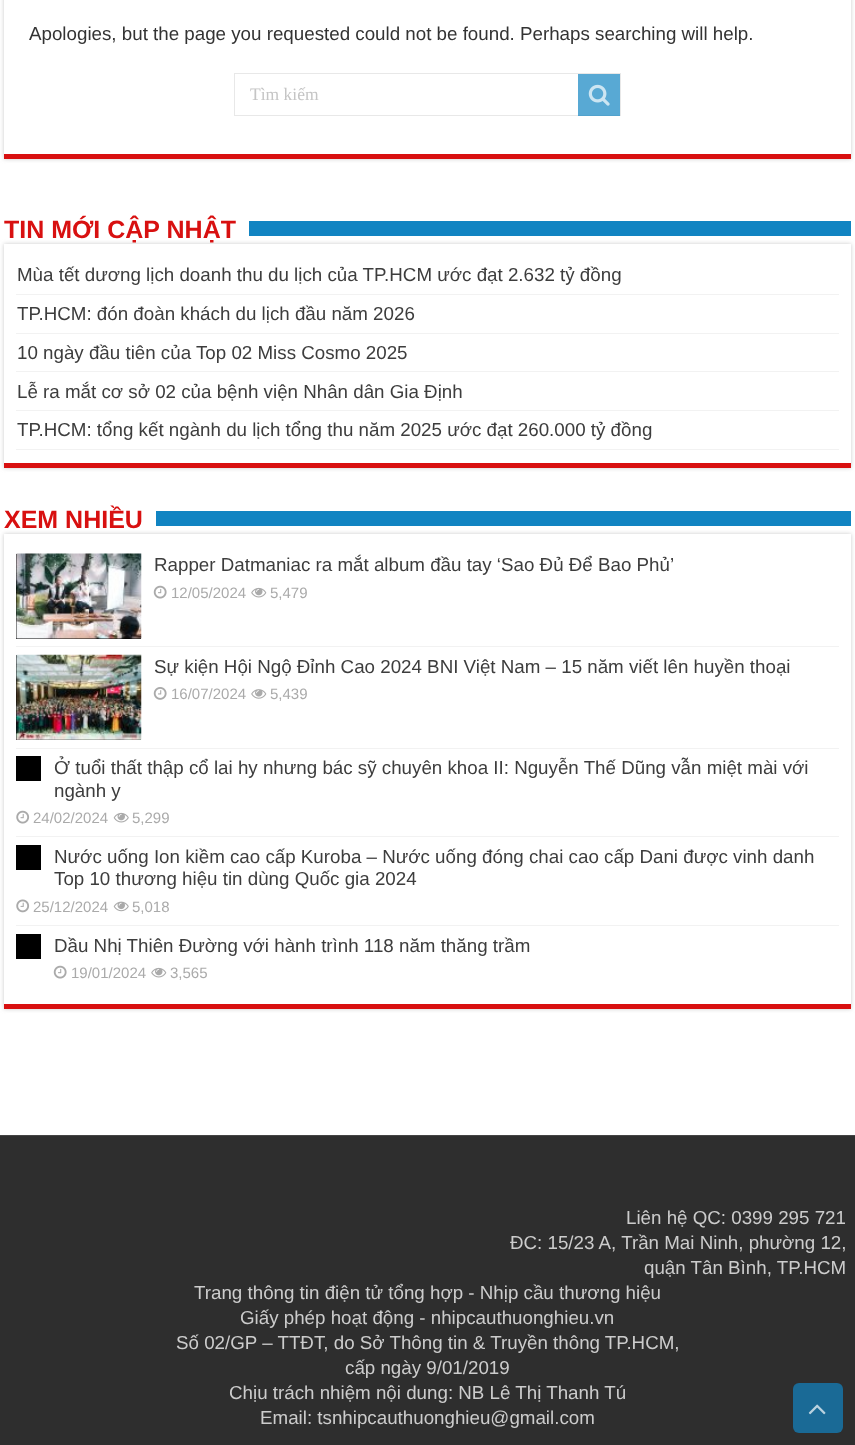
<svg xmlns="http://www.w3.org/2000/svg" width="855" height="1445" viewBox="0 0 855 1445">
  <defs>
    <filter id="blur1" x="-50%" y="-200%" width="200%" height="500%"><feGaussianBlur stdDeviation="2"/></filter>
  </defs>
  <rect width="100%" height="100%" fill="#ffffff"/>
  <rect x="4" y="-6" width="847" height="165" fill="#cacaca" filter="url(#blur1)"/>
  <rect x="4" y="0" width="847" height="154" fill="#ffffff"/>
  <rect x="4" y="154" width="847" height="5" fill="#d81010"/>
  <text x="29" y="40" font-family="Liberation Sans" font-size="18.75" fill="#333333">Apologies, but the page you requested could not be found. Perhaps searching will help.</text>
  <rect x="234.5" y="73.5" width="386" height="42" fill="none" stroke="#e8e8e8"/>
  <text x="250" y="100" font-family="Liberation Serif" font-size="17.5" fill="#c5c5c5">Tìm kiếm</text>
  <rect x="578" y="74" width="42" height="42" fill="#1184c2" fill-opacity="0.7"/>
  <image x="588" y="84" width="22" height="22" href="img1.png"/>
  <rect x="4" y="244" width="847" height="224" fill="#cacaca" filter="url(#blur1)"/>
  <text x="4" y="238" font-family="Liberation Sans" font-size="25" font-weight="bold" fill="#d81010">TIN MỚI CẬP NHẬT</text>
  <rect x="249" y="221" width="602" height="15" fill="#1184c2"/>
  <rect x="4" y="244" width="847" height="219" fill="#ffffff"/>
  <rect x="4" y="463" width="847" height="5" fill="#d81010"/>
  <rect x="16" y="294" width="823" height="1" fill="#f2f2f2"/>
  <text x="17" y="281" font-family="Liberation Sans" font-size="18.75" fill="#3d3d3d">Mùa tết dương lịch doanh thu du lịch của TP.HCM ước đạt 2.632 tỷ đồng</text>
  <rect x="16" y="333" width="823" height="1" fill="#f2f2f2"/>
  <text x="17" y="320" font-family="Liberation Sans" font-size="18.75" fill="#3d3d3d">TP.HCM: đón đoàn khách du lịch đầu năm 2026</text>
  <rect x="16" y="371" width="823" height="1" fill="#f2f2f2"/>
  <text x="17" y="359" font-family="Liberation Sans" font-size="18.75" fill="#3d3d3d">10 ngày đầu tiên của Top 02 Miss Cosmo 2025</text>
  <rect x="16" y="410" width="823" height="1" fill="#f2f2f2"/>
  <text x="17" y="398" font-family="Liberation Sans" font-size="18.75" fill="#3d3d3d">Lễ ra mắt cơ sở 02 của bệnh viện Nhân dân Gia Định</text>
  <rect x="16" y="449" width="823" height="1" fill="#f2f2f2"/>
  <text x="17" y="436" font-family="Liberation Sans" font-size="18.75" fill="#3d3d3d">TP.HCM: tổng kết ngành du lịch tổng thu năm 2025 ước đạt 260.000 tỷ đồng</text>
  <rect x="4" y="534" width="847" height="475" fill="#cacaca" filter="url(#blur1)"/>
  <text x="4" y="528" font-family="Liberation Sans" font-size="25" font-weight="bold" fill="#d81010">XEM NHIỀU</text>
  <rect x="156" y="511" width="695" height="15" fill="#1184c2"/>
  <rect x="4" y="534" width="847" height="470" fill="#ffffff"/>
  <rect x="4" y="1004" width="847" height="5" fill="#d81010"/>
  <rect x="16" y="646" width="823" height="1" fill="#f2f2f2"/>
  <rect x="16" y="554" width="125" height="85" fill="#000000"/>
  <image x="16" y="553" width="126" height="86" href="img2.png"/>
  <text x="154" y="571" font-family="Liberation Sans" font-size="18.75" fill="#3d3d3d">Rapper Datmaniac ra mắt album đầu tay ‘Sao Đủ Để Bao Phủ’</text>
  <image x="153" y="585" width="14" height="14" href="img3.png"/>
  <text x="171" y="598" font-family="Liberation Sans" font-size="15" fill="#aaaaaa">12/05/2024</text>
  <image x="251" y="587" width="16" height="11" href="img4.png"/>
  <text x="270" y="598" font-family="Liberation Sans" font-size="15" fill="#aaaaaa">5,479</text>
  <rect x="16" y="748" width="823" height="1" fill="#f2f2f2"/>
  <rect x="16" y="655" width="125" height="85" fill="#000000"/>
  <image x="16" y="654" width="126" height="86" href="img5.png"/>
  <text x="154" y="673" font-family="Liberation Sans" font-size="18.75" fill="#3d3d3d">Sự kiện Hội Ngộ Đỉnh Cao 2024 BNI Việt Nam – 15 năm viết lên huyền thoại</text>
  <image x="153" y="687" width="14" height="13" href="img6.png"/>
  <text x="171" y="699" font-family="Liberation Sans" font-size="15" fill="#aaaaaa">16/07/2024</text>
  <image x="251" y="689" width="16" height="10" href="img7.png"/>
  <text x="270" y="699" font-family="Liberation Sans" font-size="15" fill="#aaaaaa">5,439</text>
  <rect x="16" y="836" width="823" height="1" fill="#f2f2f2"/>
  <rect x="16" y="756" width="25" height="25" fill="#000000"/>
  <text x="54" y="774" font-family="Liberation Sans" font-size="18.75" fill="#3d3d3d">Ở tuổi thất thập cổ lai hy nhưng bác sỹ chuyên khoa II: Nguyễn Thế Dũng vẫn miệt mài với</text>
  <text x="54" y="797" font-family="Liberation Sans" font-size="18.75" fill="#3d3d3d">ngành y</text>
  <image x="16" y="810" width="14" height="14" href="img8.png"/>
  <text x="33" y="823" font-family="Liberation Sans" font-size="15" fill="#aaaaaa">24/02/2024</text>
  <image x="113" y="812" width="16" height="11" href="img9.png"/>
  <text x="132" y="823" font-family="Liberation Sans" font-size="15" fill="#aaaaaa">5,299</text>
  <rect x="16" y="925" width="823" height="1" fill="#f2f2f2"/>
  <rect x="16" y="845" width="25" height="25" fill="#000000"/>
  <text x="54" y="863" font-family="Liberation Sans" font-size="18.75" fill="#3d3d3d">Nước uống Ion kiềm cao cấp Kuroba – Nước uống đóng chai cao cấp Dani được vinh danh</text>
  <text x="54" y="885" font-family="Liberation Sans" font-size="18.75" fill="#3d3d3d">Top 10 thương hiệu tin dùng Quốc gia 2024</text>
  <image x="16" y="899" width="14" height="14" href="img10.png"/>
  <text x="33" y="912" font-family="Liberation Sans" font-size="15" fill="#aaaaaa">25/12/2024</text>
  <image x="113" y="901" width="16" height="11" href="img11.png"/>
  <text x="132" y="912" font-family="Liberation Sans" font-size="15" fill="#aaaaaa">5,018</text>
  <rect x="16" y="934" width="25" height="25" fill="#000000"/>
  <text x="54" y="952" font-family="Liberation Sans" font-size="18.75" fill="#3d3d3d">Dầu Nhị Thiên Đường với hành trình 118 năm thăng trầm</text>
  <image x="53" y="965" width="14" height="14" href="img3.png"/>
  <text x="71" y="978" font-family="Liberation Sans" font-size="15" fill="#aaaaaa">19/01/2024</text>
  <image x="151" y="967" width="16" height="11" href="img4.png"/>
  <text x="170" y="978" font-family="Liberation Sans" font-size="15" fill="#aaaaaa">3,565</text>
  <rect x="0" y="1136" width="855" height="309" fill="#2e2e2e"/>
  <rect x="0" y="1135" width="855" height="1" fill="#444444"/>
  <text x="626" y="1224" font-family="Liberation Sans" font-size="18.75" fill="#cccccc">Liên hệ QC: 0399 295 721</text>
  <text x="510" y="1249" font-family="Liberation Sans" font-size="18.75" fill="#cccccc">ĐC: 15/23 A, Trần Mai Ninh, phường 12,</text>
  <text x="644" y="1274" font-family="Liberation Sans" font-size="18.75" fill="#cccccc">quận Tân Bình, TP.HCM</text>
  <text x="194" y="1299" font-family="Liberation Sans" font-size="18.75" fill="#cccccc">Trang thông tin điện tử tổng hợp - Nhịp cầu thương hiệu</text>
  <text x="240" y="1324" font-family="Liberation Sans" font-size="18.75" fill="#cccccc">Giấy phép hoạt động - nhipcauthuonghieu.vn</text>
  <text x="176" y="1349" font-family="Liberation Sans" font-size="18.75" fill="#cccccc">Số 02/GP – TTĐT, do Sở Thông tin &amp; Truyền thông TP.HCM,</text>
  <text x="345" y="1374" font-family="Liberation Sans" font-size="18.75" fill="#cccccc">cấp ngày 9/01/2019</text>
  <text x="229" y="1399" font-family="Liberation Sans" font-size="18.75" fill="#cccccc">Chịu trách nhiệm nội dung: NB Lê Thị Thanh Tú</text>
  <text x="260" y="1424" font-family="Liberation Sans" font-size="18.75" fill="#cccccc">Email: tsnhipcauthuonghieu@gmail.com</text>
  <rect x="793" y="1383" width="50" height="50" rx="6" fill="#1a6a96"/>
  <image x="808" y="1404" width="18" height="11" href="img12.png"/>
</svg>
